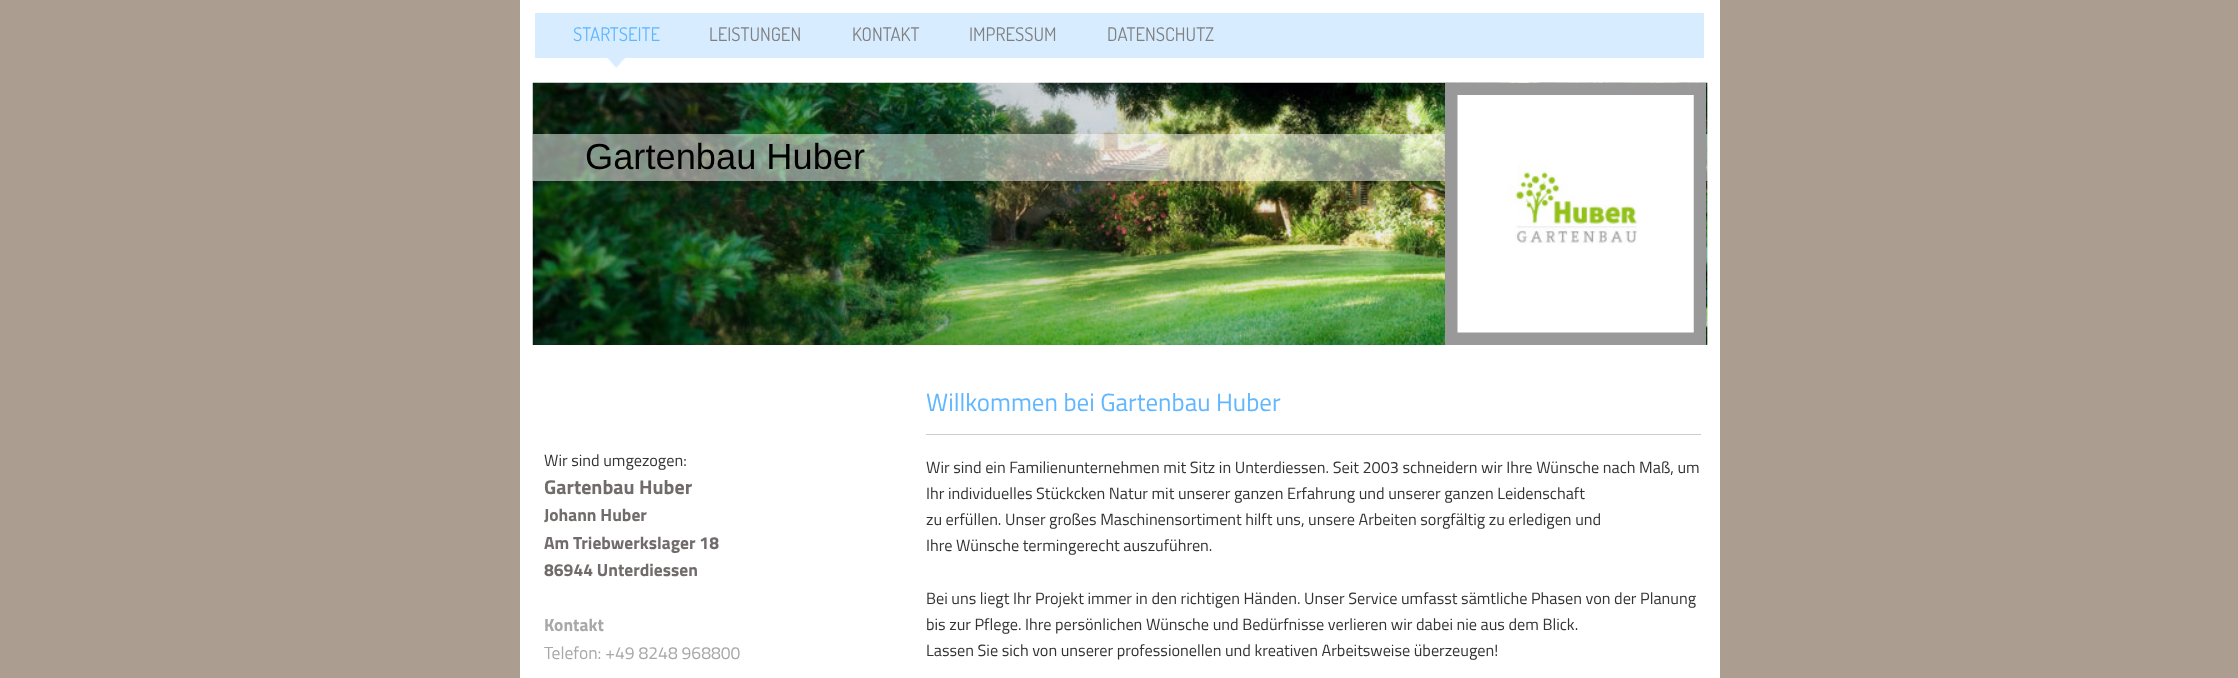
<svg xmlns="http://www.w3.org/2000/svg" width="2238" height="678" viewBox="0 0 2238 678">
  <rect width="100%" height="100%" fill="#ab9e90"/>
  <rect x="520" y="0" width="1200" height="678" fill="#ffffff"/>
  <rect x="535" y="13" width="1169" height="45" fill="#d7edff"/>
  <image x="607" y="58" width="18" height="10" href="img1.png"/>
  <text x="573" y="41" font-family="Dosis" font-size="18.75" fill="#60b6ff">STARTSEITE</text>
  <text x="709" y="41" font-family="Dosis" font-size="18.75" fill="#808080">LEISTUNGEN</text>
  <text x="852" y="41" font-family="Dosis" font-size="18.75" fill="#808080">KONTAKT</text>
  <text x="969" y="41" font-family="Dosis" font-size="18.75" fill="#808080">IMPRESSUM</text>
  <text x="1107" y="41" font-family="Dosis" font-size="18.75" fill="#808080">DATENSCHUTZ</text>
  <rect x="1707" y="83" width="1" height="262" fill="#eeeeee"/>
  <image x="532" y="82" width="1176" height="263" href="img2.png"/>
  <rect x="533" y="134" width="1175" height="47" fill="#ffffff" fill-opacity="0.5"/>
  <rect x="1451.5" y="89.5" width="248" height="249" fill="none" stroke="#999999" stroke-width="13"/>
  <image x="1457" y="95" width="237" height="238" href="img3.png"/>
  <text x="585" y="169" font-family="Liberation Sans" font-size="36.25" fill="#000000">Gartenbau Huber</text>
  <text x="544" y="466" font-family="Titillium Web" font-size="16.25" fill="#333333">Wir sind umgezogen:</text>
  <text x="544" y="494" font-family="Titillium Web" font-size="20" font-weight="bold" fill="#716b6b">Gartenbau Huber</text>
  <text x="544" y="521" font-family="Titillium Web" font-size="17.5" font-weight="bold" fill="#716b6b">Johann Huber</text>
  <text x="544" y="549" font-family="Titillium Web" font-size="17.5" font-weight="bold" fill="#716b6b">Am Triebwerkslager 18</text>
  <text x="544" y="576" font-family="Titillium Web" font-size="17.5" font-weight="bold" fill="#716b6b">86944 Unterdiessen</text>
  <text x="544" y="631" font-family="Titillium Web" font-size="17.5" font-weight="bold" fill="#a9a8a8">Kontakt</text>
  <text x="544" y="659" font-family="Titillium Web" font-size="17.5" fill="#a9a8a8">Telefon: +49 8248 968800</text>
  <text x="926" y="411" font-family="Titillium Web" font-size="25" fill="#60b6ff">Willkommen bei Gartenbau Huber</text>
  <rect x="926" y="434" width="775" height="1" fill="#cccccc"/>
  <text x="926" y="473" font-family="Titillium Web" font-size="16.25" fill="#333333">Wir sind ein Familienunternehmen mit Sitz in Unterdiessen. Seit 2003 schneidern wir Ihre Wünsche nach Maß, um</text>
  <text x="926" y="499" font-family="Titillium Web" font-size="16.25" fill="#333333">Ihr individuelles Stückcken Natur mit unserer ganzen Erfahrung und unserer ganzen Leidenschaft</text>
  <text x="926" y="525" font-family="Titillium Web" font-size="16.25" fill="#333333">zu erfüllen. Unser großes Maschinensortiment hilft uns, unsere Arbeiten sorgfältig zu erledigen und</text>
  <text x="926" y="551" font-family="Titillium Web" font-size="16.25" fill="#333333">Ihre Wünsche termingerecht auszuführen.</text>
  <text x="926" y="604" font-family="Titillium Web" font-size="16.25" fill="#333333">Bei uns liegt Ihr Projekt immer in den richtigen Händen. Unser Service umfasst sämtliche Phasen von der Planung</text>
  <text x="926" y="630" font-family="Titillium Web" font-size="16.25" fill="#333333">bis zur Pflege. Ihre persönlichen Wünsche und Bedürfnisse verlieren wir dabei nie aus dem Blick.</text>
  <text x="926" y="656" font-family="Titillium Web" font-size="16.25" fill="#333333">Lassen Sie sich von unserer professionellen und kreativen Arbeitsweise überzeugen!</text>
</svg>
